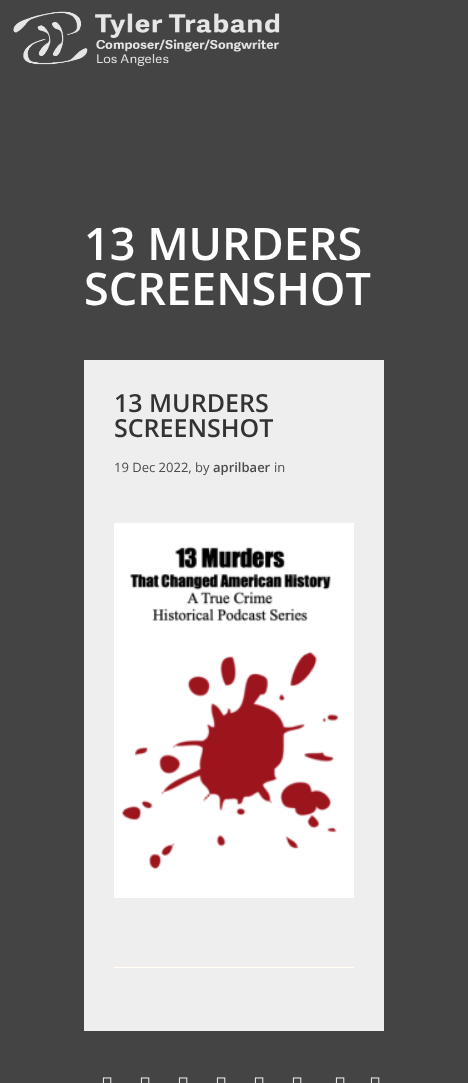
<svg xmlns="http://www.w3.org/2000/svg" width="468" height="1083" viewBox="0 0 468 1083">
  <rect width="100%" height="100%" fill="#444444"/>
  <image x="13" y="11" width="267" height="55" href="img1.png"/>
  <text x="84" y="260" font-family="Open Sans" font-size="45" font-weight="600" fill="#ffffff">13 MURDERS</text>
  <text x="84" y="305" font-family="Open Sans" font-size="45" font-weight="600" fill="#ffffff">SCREENSHOT</text>
  <rect x="84" y="360" width="300" height="671" fill="#eeeeee"/>
  <text x="114" y="412" font-family="Open Sans" font-size="25" font-weight="600" fill="#333333">13 MURDERS</text>
  <text x="114" y="437" font-family="Open Sans" font-size="25" font-weight="600" fill="#333333">SCREENSHOT</text>
  <text x="114" y="472" font-family="Open Sans" font-size="13" fill="#4c4c4c">19 Dec 2022, by</text>
  <text x="213" y="472" font-family="Open Sans" font-size="13" font-weight="600" fill="#4c4c4c">aprilbaer</text>
  <text x="274" y="472" font-family="Open Sans" font-size="13" fill="#4c4c4c">in</text>
  <image x="114" y="523" width="240" height="375" href="img2.png"/>
  <rect x="114" y="967" width="240" height="1" fill="#ffffff"/>
  <rect x="114" y="966" width="240" height="1" fill="#fbefdd"/>
  <image x="102" y="1077" width="10" height="6" href="img3.png"/>
  <image x="140" y="1077" width="10" height="6" href="img3.png"/>
  <image x="178" y="1077" width="10" height="6" href="img3.png"/>
  <image x="216" y="1077" width="10" height="6" href="img3.png"/>
  <image x="254" y="1077" width="10" height="6" href="img3.png"/>
  <image x="292" y="1077" width="10" height="6" href="img3.png"/>
  <image x="335" y="1077" width="10" height="6" href="img3.png"/>
  <image x="370" y="1077" width="10" height="6" href="img3.png"/>
</svg>
